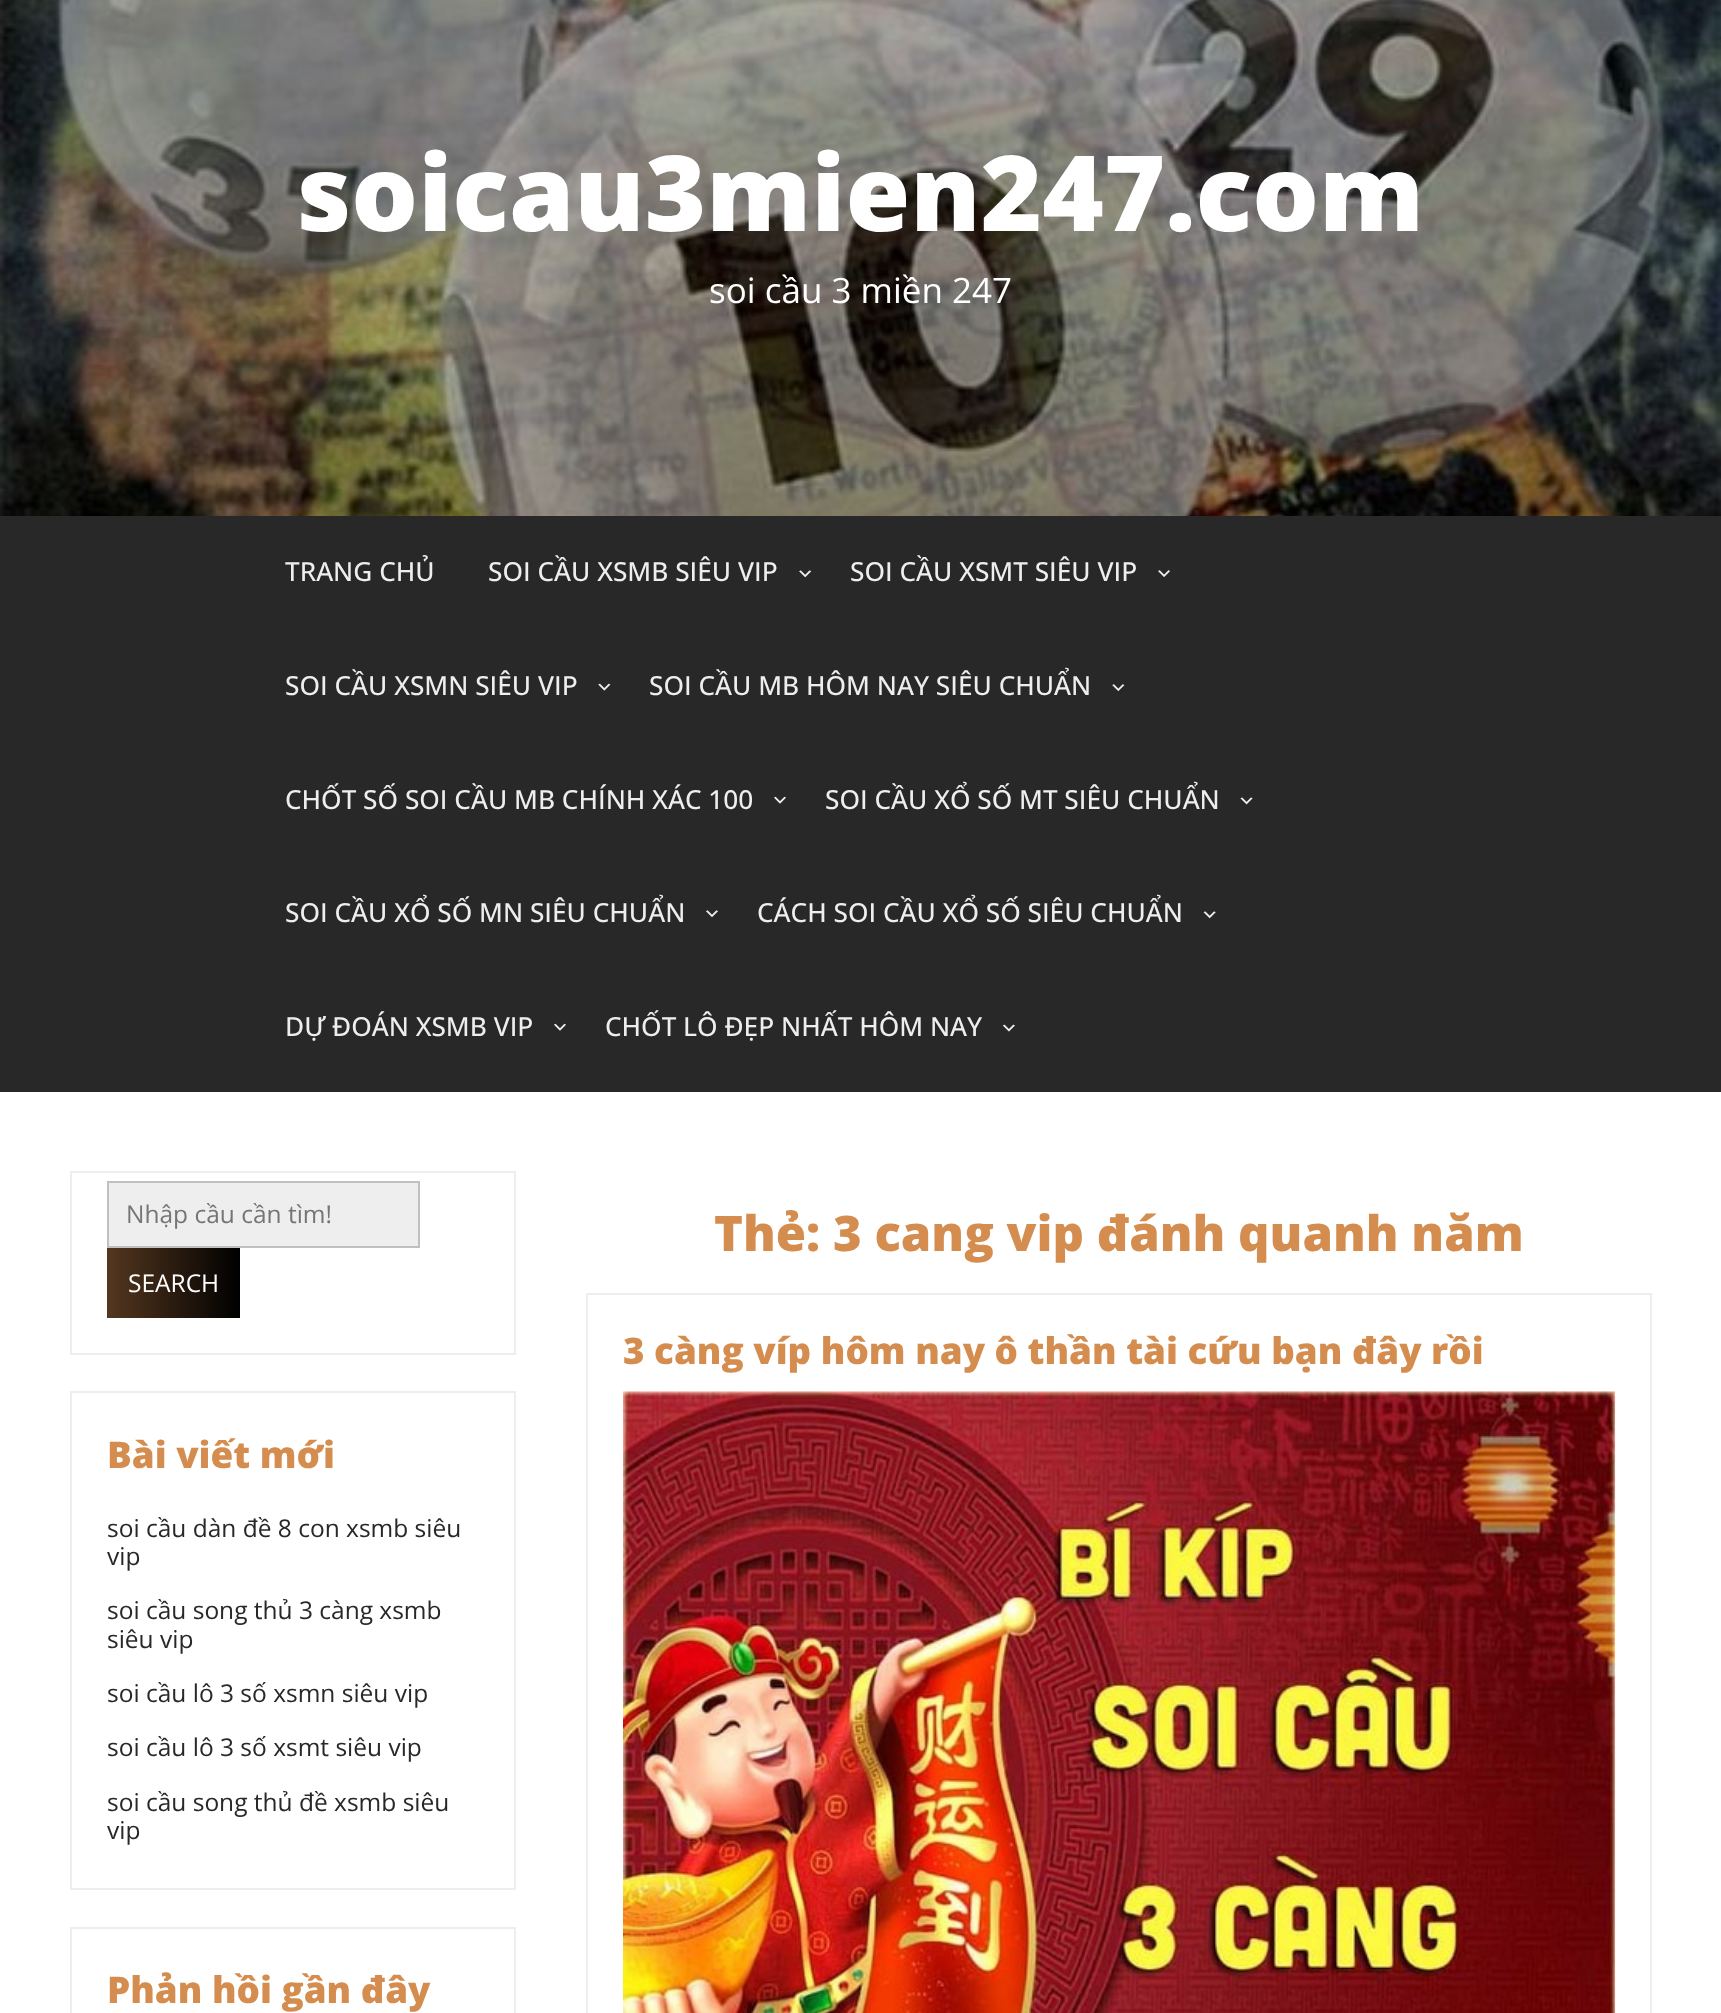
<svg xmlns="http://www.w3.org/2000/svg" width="1721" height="2013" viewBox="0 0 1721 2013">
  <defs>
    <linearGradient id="g1" gradientUnits="userSpaceOnUse" x1="107" y1="1283" x2="240" y2="1283"><stop offset="0" stop-color="#54371f"/><stop offset="1" stop-color="#000000"/></linearGradient>
  </defs>
  <rect width="100%" height="100%" fill="#ffffff"/>
  <image x="0" y="0" width="1721" height="516" href="img1.png"/>
  <text x="297" y="231" font-family="Open Sans" font-size="105" font-weight="800" fill="#ffffff">soicau3mien247.com</text>
  <text x="709" y="303" font-family="Open Sans" font-size="35" fill="#ffffff">soi cầu 3 miền 247</text>
  <rect x="0" y="516" width="1721" height="576" fill="#282828"/>
  <text x="285" y="581" font-family="Open Sans" font-size="26.25" font-weight="500" fill="#eeeeee">TRANG CHỦ</text>
  <text x="488" y="581" font-family="Open Sans" font-size="26.25" font-weight="500" fill="#eeeeee">SOI CẦU XSMB SIÊU VIP</text>
  <image x="799" y="570" width="13" height="8" href="img2.png"/>
  <text x="850" y="581" font-family="Open Sans" font-size="26.25" font-weight="500" fill="#eeeeee">SOI CẦU XSMT SIÊU VIP</text>
  <image x="1158" y="570" width="13" height="7" href="img3.png"/>
  <text x="285" y="695" font-family="Open Sans" font-size="26.25" font-weight="500" fill="#eeeeee">SOI CẦU XSMN SIÊU VIP</text>
  <image x="598" y="683" width="13" height="8" href="img4.png"/>
  <text x="649" y="695" font-family="Open Sans" font-size="26.25" font-weight="500" fill="#eeeeee">SOI CẦU MB HÔM NAY SIÊU CHUẨN</text>
  <image x="1112" y="684" width="13" height="8" href="img5.png"/>
  <text x="285" y="809" font-family="Open Sans" font-size="26.25" font-weight="500" fill="#eeeeee">CHỐT SỐ SOI CẦU MB CHÍNH XÁC 100</text>
  <image x="774" y="796" width="12" height="8" href="img6.png"/>
  <text x="825" y="809" font-family="Open Sans" font-size="26.25" font-weight="500" fill="#eeeeee">SOI CẦU XỔ SỐ MT SIÊU CHUẨN</text>
  <image x="1240" y="797" width="13" height="8" href="img7.png"/>
  <text x="285" y="922" font-family="Open Sans" font-size="26.25" font-weight="500" fill="#eeeeee">SOI CẦU XỔ SỐ MN SIÊU CHUẨN</text>
  <image x="706" y="910" width="12" height="8" href="img8.png"/>
  <text x="757" y="922" font-family="Open Sans" font-size="26.25" font-weight="500" fill="#eeeeee">CÁCH SOI CẦU XỔ SỐ SIÊU CHUẨN</text>
  <image x="1203" y="911" width="13" height="8" href="img9.png"/>
  <text x="285" y="1036" font-family="Open Sans" font-size="26.25" font-weight="500" fill="#eeeeee">DỰ ĐOÁN XSMB VIP</text>
  <image x="554" y="1023" width="12" height="8" href="img10.png"/>
  <text x="605" y="1036" font-family="Open Sans" font-size="26.25" font-weight="500" fill="#eeeeee">CHỐT LÔ ĐẸP NHẤT HÔM NAY</text>
  <image x="1002" y="1024" width="13" height="8" href="img11.png"/>
  <rect x="71" y="1172" width="444" height="182" fill="none" stroke="#eeeeee" stroke-width="2"/>
  <rect x="108" y="1182" width="311" height="65" fill="#eeeeee" stroke="#c0c0c0" stroke-width="2"/>
  <text x="126" y="1223" font-family="Open Sans" font-size="24.5" fill="#757575">Nhập cầu cần tìm!</text>
  <rect x="107" y="1248" width="133" height="70" fill="url(#g1)"/>
  <text x="128" y="1292" font-family="Open Sans" font-size="24.5" fill="#ffffff">SEARCH</text>
  <rect x="71" y="1392" width="444" height="497" fill="none" stroke="#eeeeee" stroke-width="2"/>
  <text x="107" y="1468" font-family="Open Sans" font-size="36.75" font-weight="800" fill="#d48d4f">Bài viết mới</text>
  <text x="107" y="1537" font-family="Open Sans" font-size="24.5" fill="#282828">soi cầu dàn đề 8 con xsmb siêu</text>
  <text x="107" y="1565" font-family="Open Sans" font-size="24.5" fill="#282828">vip</text>
  <text x="107" y="1619" font-family="Open Sans" font-size="24.5" fill="#282828">soi cầu song thủ 3 càng xsmb</text>
  <text x="107" y="1648" font-family="Open Sans" font-size="24.5" fill="#282828">siêu vip</text>
  <text x="107" y="1702" font-family="Open Sans" font-size="24.5" fill="#282828">soi cầu lô 3 số xsmn siêu vip</text>
  <text x="107" y="1756" font-family="Open Sans" font-size="24.5" fill="#282828">soi cầu lô 3 số xsmt siêu vip</text>
  <text x="107" y="1811" font-family="Open Sans" font-size="24.5" fill="#282828">soi cầu song thủ đề xsmb siêu</text>
  <text x="107" y="1839" font-family="Open Sans" font-size="24.5" fill="#282828">vip</text>
  <rect x="71" y="1928" width="444" height="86" fill="none" stroke="#eeeeee" stroke-width="2"/>
  <text x="107" y="2003" font-family="Open Sans" font-size="36.75" font-weight="800" fill="#d48d4f">Phản hồi gần đây</text>
  <text x="714" y="1251" font-family="Open Sans" font-size="49" font-weight="800" fill="#d48d4f">Thẻ: 3 cang vip đánh quanh năm</text>
  <rect x="587" y="1294" width="1064" height="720" fill="none" stroke="#eeeeee" stroke-width="2"/>
  <text x="623" y="1364" font-family="Open Sans" font-size="36.75" font-weight="800" fill="#d48d4f">3 càng víp hôm nay ô thần tài cứu bạn đây rồi</text>
  <image x="623" y="1391" width="993" height="622" href="img12.png"/>
</svg>
